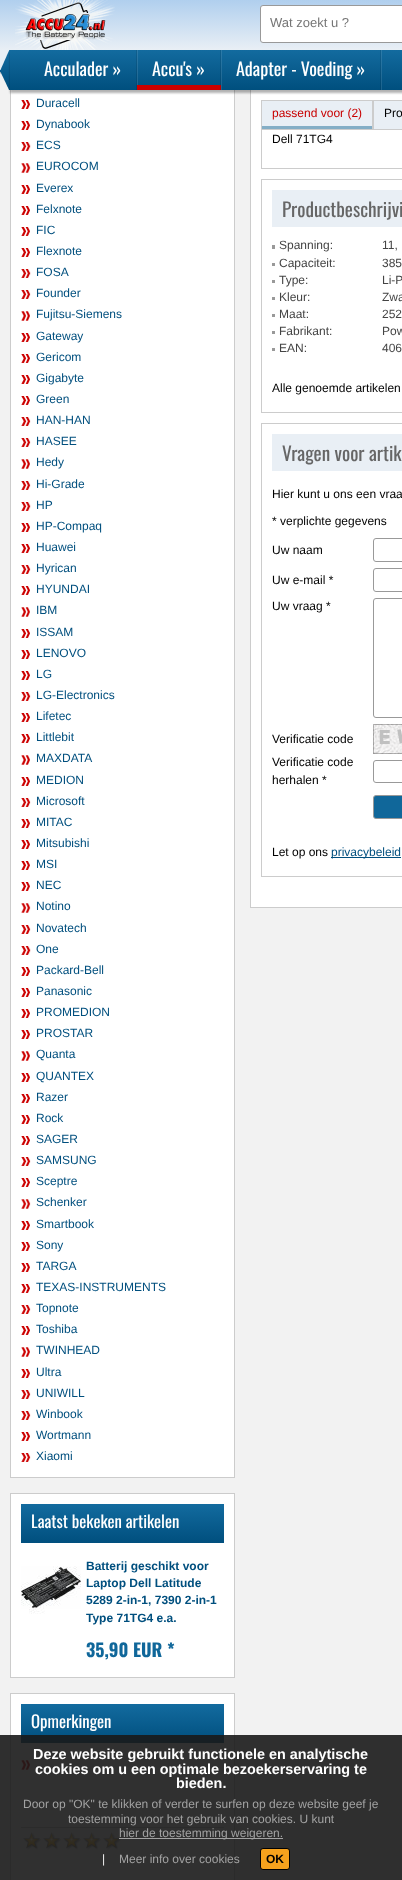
<svg xmlns="http://www.w3.org/2000/svg" width="402" height="1880" viewBox="0 0 402 1880">
  <defs>
    <linearGradient id="g1" gradientUnits="userSpaceOnUse" x1="201" y1="0" x2="201" y2="50"><stop offset="0" stop-color="#b0cfee"/><stop offset="1" stop-color="#e9eff5"/></linearGradient>
    <filter id="blur1" x="-50%" y="-200%" width="200%" height="500%"><feGaussianBlur stdDeviation="1"/></filter>
    <linearGradient id="g2" gradientUnits="userSpaceOnUse" x1="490" y1="50" x2="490" y2="90"><stop offset="0" stop-color="#136b9f"/><stop offset="1" stop-color="#004f7e"/></linearGradient>
    <linearGradient id="g3" gradientUnits="userSpaceOnUse" x1="123" y1="1504" x2="123" y2="1543"><stop offset="0" stop-color="#136b9f"/><stop offset="1" stop-color="#004f7e"/></linearGradient>
    <linearGradient id="g4" gradientUnits="userSpaceOnUse" x1="123" y1="1704" x2="123" y2="1743"><stop offset="0" stop-color="#136b9f"/><stop offset="1" stop-color="#004f7e"/></linearGradient>
  </defs>
  <rect width="100%" height="100%" fill="#f2f2f2"/>
  <rect x="11" y="90" width="223" height="1387" fill="#ffffff"/>
  <rect x="10.5" y="-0.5" width="224" height="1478" fill="none" stroke="#cccccc"/>
  <rect x="251" y="90" width="151" height="817" fill="#ffffff"/>
  <rect x="250.5" y="-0.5" width="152" height="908" fill="none" stroke="#cccccc"/>
  <rect x="261.5" y="-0.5" width="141" height="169" fill="none" stroke="#cccccc"/>
  <rect x="0" y="0" width="402" height="50" fill="url(#g1)"/>
  <image x="15" y="0" width="100" height="50" href="img1.png"/>
  <rect x="260.5" y="5.5" width="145" height="37" rx="2.5" fill="#ffffff" stroke="#999999"/>
  <text x="270" y="27" font-family="Liberation Sans" font-size="13" fill="#757575">Wat zoekt u ?</text>
  <image x="0" y="50" width="10" height="24" href="img2.png"/>
  <image x="0" y="50" width="10" height="40" href="img3.png"/>
  <rect x="261" y="90" width="1" height="10" fill="#ffffff"/>
  <rect x="10" y="53" width="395" height="40" fill="#000000" fill-opacity="0.3" filter="url(#blur1)"/>
  <rect x="10" y="50" width="392" height="40" fill="url(#g2)"/>
  <rect x="137" y="50" width="1" height="40" fill="#ffffff" fill-opacity="0.11"/>
  <rect x="136" y="50" width="1" height="40" fill="#000000" fill-opacity="0.1"/>
  <text x="44" y="76" font-family="Oswald" font-size="18" fill="#ffffff">Acculader »</text>
  <rect x="221" y="50" width="1" height="40" fill="#ffffff" fill-opacity="0.11"/>
  <rect x="137" y="85" width="84" height="5" fill="#cc0000"/>
  <rect x="220" y="50" width="1" height="40" fill="#000000" fill-opacity="0.1"/>
  <text x="152" y="76" font-family="Oswald" font-size="18" fill="#ffffff">Accu's »</text>
  <rect x="381" y="50" width="1" height="40" fill="#ffffff" fill-opacity="0.11"/>
  <rect x="380" y="50" width="1" height="40" fill="#000000" fill-opacity="0.1"/>
  <text x="236" y="76" font-family="Oswald" font-size="18" fill="#ffffff">Adapter - Voeding »</text>
  <image x="21" y="100" width="9" height="9" href="img4.png"/>
  <text x="36" y="107" font-family="Liberation Sans" font-size="12" fill="#004f7e">Duracell</text>
  <image x="21" y="121" width="9" height="9" href="img4.png"/>
  <text x="36" y="128" font-family="Liberation Sans" font-size="12" fill="#004f7e">Dynabook</text>
  <image x="21" y="142" width="10" height="9" href="img5.png"/>
  <text x="36" y="149" font-family="Liberation Sans" font-size="12" fill="#004f7e">ECS</text>
  <image x="21" y="163" width="10" height="10" href="img6.png"/>
  <text x="36" y="170" font-family="Liberation Sans" font-size="12" fill="#004f7e">EUROCOM</text>
  <image x="21" y="185" width="9" height="9" href="img4.png"/>
  <text x="36" y="192" font-family="Liberation Sans" font-size="12" fill="#004f7e">Everex</text>
  <image x="21" y="206" width="9" height="9" href="img4.png"/>
  <text x="36" y="213" font-family="Liberation Sans" font-size="12" fill="#004f7e">Felxnote</text>
  <image x="21" y="227" width="9" height="9" href="img7.png"/>
  <text x="36" y="234" font-family="Liberation Sans" font-size="12" fill="#004f7e">FIC</text>
  <image x="21" y="248" width="9" height="9" href="img4.png"/>
  <text x="36" y="255" font-family="Liberation Sans" font-size="12" fill="#004f7e">Flexnote</text>
  <image x="21" y="269" width="10" height="9" href="img8.png"/>
  <text x="36" y="276" font-family="Liberation Sans" font-size="12" fill="#004f7e">FOSA</text>
  <image x="21" y="290" width="10" height="9" href="img9.png"/>
  <text x="36" y="297" font-family="Liberation Sans" font-size="12" fill="#004f7e">Founder</text>
  <image x="21" y="311" width="9" height="10" href="img10.png"/>
  <text x="36" y="318" font-family="Liberation Sans" font-size="12" fill="#004f7e">Fujitsu-Siemens</text>
  <image x="21" y="333" width="9" height="9" href="img4.png"/>
  <text x="36" y="340" font-family="Liberation Sans" font-size="12" fill="#004f7e">Gateway</text>
  <image x="21" y="354" width="9" height="9" href="img4.png"/>
  <text x="36" y="361" font-family="Liberation Sans" font-size="12" fill="#004f7e">Gericom</text>
  <image x="21" y="375" width="9" height="9" href="img4.png"/>
  <text x="36" y="382" font-family="Liberation Sans" font-size="12" fill="#004f7e">Gigabyte</text>
  <image x="21" y="396" width="9" height="9" href="img11.png"/>
  <text x="36" y="403" font-family="Liberation Sans" font-size="12" fill="#004f7e">Green</text>
  <image x="21" y="417" width="10" height="9" href="img9.png"/>
  <text x="36" y="424" font-family="Liberation Sans" font-size="12" fill="#004f7e">HAN-HAN</text>
  <image x="21" y="438" width="10" height="9" href="img9.png"/>
  <text x="36" y="445" font-family="Liberation Sans" font-size="12" fill="#004f7e">HASEE</text>
  <image x="21" y="459" width="9" height="10" href="img10.png"/>
  <text x="36" y="466" font-family="Liberation Sans" font-size="12" fill="#004f7e">Hedy</text>
  <image x="21" y="481" width="10" height="9" href="img9.png"/>
  <text x="36" y="488" font-family="Liberation Sans" font-size="12" fill="#004f7e">Hi-Grade</text>
  <image x="21" y="502" width="10" height="9" href="img12.png"/>
  <text x="36" y="509" font-family="Liberation Sans" font-size="12" fill="#004f7e">HP</text>
  <image x="21" y="523" width="9" height="9" href="img4.png"/>
  <text x="36" y="530" font-family="Liberation Sans" font-size="12" fill="#004f7e">HP-Compaq</text>
  <image x="21" y="544" width="9" height="9" href="img4.png"/>
  <text x="36" y="551" font-family="Liberation Sans" font-size="12" fill="#004f7e">Huawei</text>
  <image x="21" y="565" width="10" height="9" href="img9.png"/>
  <text x="36" y="572" font-family="Liberation Sans" font-size="12" fill="#004f7e">Hyrican</text>
  <image x="21" y="586" width="9" height="9" href="img4.png"/>
  <text x="36" y="593" font-family="Liberation Sans" font-size="12" fill="#004f7e">HYUNDAI</text>
  <image x="21" y="607" width="9" height="10" href="img13.png"/>
  <text x="36" y="614" font-family="Liberation Sans" font-size="12" fill="#004f7e">IBM</text>
  <image x="21" y="629" width="9" height="9" href="img4.png"/>
  <text x="36" y="636" font-family="Liberation Sans" font-size="12" fill="#004f7e">ISSAM</text>
  <image x="21" y="650" width="9" height="9" href="img4.png"/>
  <text x="36" y="657" font-family="Liberation Sans" font-size="12" fill="#004f7e">LENOVO</text>
  <image x="21" y="671" width="9" height="9" href="img4.png"/>
  <text x="36" y="678" font-family="Liberation Sans" font-size="12" fill="#004f7e">LG</text>
  <image x="21" y="692" width="10" height="9" href="img9.png"/>
  <text x="36" y="699" font-family="Liberation Sans" font-size="12" fill="#004f7e">LG-Electronics</text>
  <image x="21" y="713" width="9" height="9" href="img4.png"/>
  <text x="36" y="720" font-family="Liberation Sans" font-size="12" fill="#004f7e">Lifetec</text>
  <image x="21" y="734" width="9" height="9" href="img4.png"/>
  <text x="36" y="741" font-family="Liberation Sans" font-size="12" fill="#004f7e">Littlebit</text>
  <image x="21" y="755" width="9" height="10" href="img10.png"/>
  <text x="36" y="762" font-family="Liberation Sans" font-size="12" fill="#004f7e">MAXDATA</text>
  <image x="21" y="777" width="9" height="9" href="img4.png"/>
  <text x="36" y="784" font-family="Liberation Sans" font-size="12" fill="#004f7e">MEDION</text>
  <image x="21" y="798" width="10" height="9" href="img9.png"/>
  <text x="36" y="805" font-family="Liberation Sans" font-size="12" fill="#004f7e">Microsoft</text>
  <image x="21" y="819" width="9" height="9" href="img14.png"/>
  <text x="36" y="826" font-family="Liberation Sans" font-size="12" fill="#004f7e">MITAC</text>
  <image x="21" y="840" width="9" height="9" href="img4.png"/>
  <text x="36" y="847" font-family="Liberation Sans" font-size="12" fill="#004f7e">Mitsubishi</text>
  <image x="21" y="861" width="9" height="9" href="img14.png"/>
  <text x="36" y="868" font-family="Liberation Sans" font-size="12" fill="#004f7e">MSI</text>
  <image x="21" y="882" width="9" height="9" href="img14.png"/>
  <text x="36" y="889" font-family="Liberation Sans" font-size="12" fill="#004f7e">NEC</text>
  <image x="21" y="903" width="10" height="10" href="img6.png"/>
  <text x="36" y="910" font-family="Liberation Sans" font-size="12" fill="#004f7e">Notino</text>
  <image x="21" y="925" width="10" height="9" href="img9.png"/>
  <text x="36" y="932" font-family="Liberation Sans" font-size="12" fill="#004f7e">Novatech</text>
  <image x="21" y="946" width="10" height="9" href="img5.png"/>
  <text x="36" y="953" font-family="Liberation Sans" font-size="12" fill="#004f7e">One</text>
  <image x="21" y="967" width="9" height="9" href="img4.png"/>
  <text x="36" y="974" font-family="Liberation Sans" font-size="12" fill="#004f7e">Packard-Bell</text>
  <image x="21" y="988" width="9" height="9" href="img4.png"/>
  <text x="36" y="995" font-family="Liberation Sans" font-size="12" fill="#004f7e">Panasonic</text>
  <image x="21" y="1009" width="9" height="9" href="img4.png"/>
  <text x="36" y="1016" font-family="Liberation Sans" font-size="12" fill="#004f7e">PROMEDION</text>
  <image x="21" y="1030" width="9" height="9" href="img4.png"/>
  <text x="36" y="1037" font-family="Liberation Sans" font-size="12" fill="#004f7e">PROSTAR</text>
  <image x="21" y="1051" width="9" height="10" href="img10.png"/>
  <text x="36" y="1058" font-family="Liberation Sans" font-size="12" fill="#004f7e">Quanta</text>
  <image x="21" y="1073" width="9" height="9" href="img4.png"/>
  <text x="36" y="1080" font-family="Liberation Sans" font-size="12" fill="#004f7e">QUANTEX</text>
  <image x="21" y="1094" width="9" height="9" href="img4.png"/>
  <text x="36" y="1101" font-family="Liberation Sans" font-size="12" fill="#004f7e">Razer</text>
  <image x="21" y="1115" width="9" height="9" href="img11.png"/>
  <text x="36" y="1122" font-family="Liberation Sans" font-size="12" fill="#004f7e">Rock</text>
  <image x="21" y="1136" width="9" height="9" href="img4.png"/>
  <text x="36" y="1143" font-family="Liberation Sans" font-size="12" fill="#004f7e">SAGER</text>
  <image x="21" y="1157" width="10" height="9" href="img9.png"/>
  <text x="36" y="1164" font-family="Liberation Sans" font-size="12" fill="#004f7e">SAMSUNG</text>
  <image x="21" y="1178" width="9" height="9" href="img4.png"/>
  <text x="36" y="1185" font-family="Liberation Sans" font-size="12" fill="#004f7e">Sceptre</text>
  <image x="21" y="1199" width="10" height="10" href="img6.png"/>
  <text x="36" y="1206" font-family="Liberation Sans" font-size="12" fill="#004f7e">Schenker</text>
  <image x="21" y="1221" width="9" height="9" href="img4.png"/>
  <text x="36" y="1228" font-family="Liberation Sans" font-size="12" fill="#004f7e">Smartbook</text>
  <image x="21" y="1242" width="9" height="9" href="img14.png"/>
  <text x="36" y="1249" font-family="Liberation Sans" font-size="12" fill="#004f7e">Sony</text>
  <image x="21" y="1263" width="9" height="9" href="img11.png"/>
  <text x="36" y="1270" font-family="Liberation Sans" font-size="12" fill="#004f7e">TARGA</text>
  <image x="21" y="1284" width="9" height="9" href="img4.png"/>
  <text x="36" y="1291" font-family="Liberation Sans" font-size="12" fill="#004f7e">TEXAS-INSTRUMENTS</text>
  <image x="21" y="1305" width="10" height="9" href="img9.png"/>
  <text x="36" y="1312" font-family="Liberation Sans" font-size="12" fill="#004f7e">Topnote</text>
  <image x="21" y="1326" width="9" height="9" href="img4.png"/>
  <text x="36" y="1333" font-family="Liberation Sans" font-size="12" fill="#004f7e">Toshiba</text>
  <image x="21" y="1347" width="9" height="10" href="img10.png"/>
  <text x="36" y="1354" font-family="Liberation Sans" font-size="12" fill="#004f7e">TWINHEAD</text>
  <image x="21" y="1369" width="9" height="9" href="img14.png"/>
  <text x="36" y="1376" font-family="Liberation Sans" font-size="12" fill="#004f7e">Ultra</text>
  <image x="21" y="1390" width="10" height="9" href="img9.png"/>
  <text x="36" y="1397" font-family="Liberation Sans" font-size="12" fill="#004f7e">UNIWILL</text>
  <image x="21" y="1411" width="10" height="9" href="img9.png"/>
  <text x="36" y="1418" font-family="Liberation Sans" font-size="12" fill="#004f7e">Winbook</text>
  <image x="21" y="1432" width="9" height="9" href="img4.png"/>
  <text x="36" y="1439" font-family="Liberation Sans" font-size="12" fill="#004f7e">Wortmann</text>
  <image x="21" y="1453" width="10" height="9" href="img9.png"/>
  <text x="36" y="1460" font-family="Liberation Sans" font-size="12" fill="#004f7e">Xiaomi</text>
  <rect x="10.5" y="1493.5" width="224" height="184" fill="#ffffff" stroke="#cccccc"/>
  <rect x="21" y="1504" width="203" height="39" fill="url(#g3)"/>
  <text x="31" y="1528" font-family="Oswald" font-size="16.75" fill="#ffffff">Laatst bekeken artikelen</text>
  <image x="21" y="1566" width="60" height="48" href="img15.png"/>
  <text x="86" y="1570" font-family="Liberation Sans" font-size="12" font-weight="bold" fill="#004f7e">Batterij geschikt voor</text>
  <text x="86" y="1587" font-family="Liberation Sans" font-size="12" font-weight="bold" fill="#004f7e">Laptop Dell Latitude</text>
  <text x="86" y="1604" font-family="Liberation Sans" font-size="12" font-weight="bold" fill="#004f7e">5289 2-in-1, 7390 2-in-1</text>
  <text x="86" y="1622" font-family="Liberation Sans" font-size="12" font-weight="bold" fill="#004f7e">Type 71TG4 e.a.</text>
  <text x="86" y="1657" font-family="Oswald" font-size="18" font-weight="bold" fill="#10679a">35,90 EUR *</text>
  <rect x="10.5" y="1693.5" width="224" height="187" fill="#ffffff" stroke="#cccccc"/>
  <rect x="21" y="1704" width="203" height="39" fill="url(#g4)"/>
  <text x="31" y="1728" font-family="Oswald" font-size="16.75" fill="#ffffff">Opmerkingen</text>
  <image x="21" y="1760" width="9" height="10" href="img10.png"/>
  <rect x="21" y="1827" width="203" height="1" fill="#cccccc"/>
  <image x="23" y="1830" width="98" height="20" href="img16.png"/>
  <rect x="262" y="101" width="110" height="25" fill="#e9eff5"/>
  <rect x="262" y="126" width="110" height="3" fill="#84aec6"/>
  <rect x="261.5" y="100.5" width="111" height="29" fill="none" stroke="#cccccc"/>
  <text x="272" y="117" font-family="Liberation Sans" font-size="12" fill="#c80000">passend voor (2)</text>
  <rect x="373.5" y="100.5" width="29" height="29" fill="#e9eff5" stroke="#cccccc"/>
  <text x="384" y="117" font-family="Liberation Sans" font-size="12" fill="#000000">Pro</text>
  <text x="272" y="143" font-family="Liberation Sans" font-size="12" fill="#000000">Dell 71TG4</text>
  <rect x="261.5" y="179.5" width="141" height="233" fill="none" stroke="#cccccc"/>
  <rect x="272" y="190" width="130" height="37" fill="#e9eff5"/>
  <text x="282" y="217" font-family="Oswald" font-size="19.25" fill="#666666">Productbeschrijvi</text>
  <rect x="272" y="245" width="3" height="4" fill="#999999"/>
  <text x="279" y="249" font-family="Liberation Sans" font-size="12" fill="#444444">Spanning:</text>
  <text x="382" y="249" font-family="Liberation Sans" font-size="12" fill="#444444">11,</text>
  <rect x="272" y="263" width="3" height="3" fill="#999999"/>
  <text x="279" y="267" font-family="Liberation Sans" font-size="12" fill="#444444">Capaciteit:</text>
  <text x="382" y="267" font-family="Liberation Sans" font-size="12" fill="#444444">385</text>
  <rect x="272" y="280" width="3" height="3" fill="#999999"/>
  <text x="279" y="284" font-family="Liberation Sans" font-size="12" fill="#444444">Type:</text>
  <text x="382" y="284" font-family="Liberation Sans" font-size="12" fill="#444444">Li-P</text>
  <rect x="272" y="297" width="3" height="3" fill="#999999"/>
  <text x="279" y="301" font-family="Liberation Sans" font-size="12" fill="#444444">Kleur:</text>
  <text x="382" y="301" font-family="Liberation Sans" font-size="12" fill="#444444">Zwa</text>
  <rect x="272" y="314" width="3" height="3" fill="#999999"/>
  <text x="279" y="318" font-family="Liberation Sans" font-size="12" fill="#444444">Maat:</text>
  <text x="382" y="318" font-family="Liberation Sans" font-size="12" fill="#444444">252</text>
  <rect x="272" y="331" width="3" height="3" fill="#999999"/>
  <text x="279" y="335" font-family="Liberation Sans" font-size="12" fill="#444444">Fabrikant:</text>
  <text x="382" y="335" font-family="Liberation Sans" font-size="12" fill="#444444">Pow</text>
  <rect x="272" y="348" width="3" height="3" fill="#999999"/>
  <text x="279" y="352" font-family="Liberation Sans" font-size="12" fill="#444444">EAN:</text>
  <text x="382" y="352" font-family="Liberation Sans" font-size="12" fill="#444444">406</text>
  <text x="272" y="392" font-family="Liberation Sans" font-size="12" fill="#000000">Alle genoemde artikelen</text>
  <rect x="261.5" y="423.5" width="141" height="453" fill="none" stroke="#cccccc"/>
  <rect x="272" y="434" width="130" height="37" fill="#e9eff5"/>
  <text x="282" y="461" font-family="Oswald" font-size="19.25" fill="#666666">Vragen voor artik</text>
  <text x="272" y="498" font-family="Liberation Sans" font-size="12" fill="#000000">Hier kunt u ons een vraa</text>
  <text x="272" y="525" font-family="Liberation Sans" font-size="12" fill="#000000">* verplichte gegevens</text>
  <text x="272" y="554" font-family="Liberation Sans" font-size="12" fill="#000000">Uw naam</text>
  <rect x="373.5" y="538.5" width="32" height="23" rx="2.5" fill="none" stroke="#999999"/>
  <text x="272" y="584" font-family="Liberation Sans" font-size="12" fill="#000000">Uw e-mail *</text>
  <rect x="373.5" y="568.5" width="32" height="23" rx="2.5" fill="none" stroke="#999999"/>
  <text x="272" y="610" font-family="Liberation Sans" font-size="12" fill="#000000">Uw vraag *</text>
  <rect x="373.5" y="598.5" width="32" height="119" rx="2.5" fill="none" stroke="#999999"/>
  <text x="272" y="743" font-family="Liberation Sans" font-size="12" fill="#000000">Verificatie code</text>
  <image x="373" y="724" width="29" height="30" href="img17.png"/>
  <text x="272" y="766" font-family="Liberation Sans" font-size="12" fill="#000000">Verificatie code</text>
  <text x="272" y="784" font-family="Liberation Sans" font-size="12" fill="#000000">herhalen *</text>
  <rect x="373.5" y="760.5" width="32" height="22" rx="2.5" fill="none" stroke="#999999"/>
  <rect x="373.5" y="795.5" width="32" height="23" rx="2.5" fill="#10679a" stroke="#999999"/>
  <text x="272" y="856" font-family="Liberation Sans" font-size="12" fill="#000000">Let op ons</text>
  <rect x="331" y="857" width="70" height="1" fill="#004f7e"/>
  <text x="331" y="856" font-family="Liberation Sans" font-size="12" fill="#004f7e">privacybeleid</text>
  <rect x="0" y="1735" width="402" height="145" fill="#191919" fill-opacity="0.9"/>
  <text x="33" y="1759" font-family="Liberation Sans" font-size="14.4" font-weight="bold" fill="#ffffff">Deze website gebruikt functionele en analytische</text>
  <text x="35" y="1774" font-family="Liberation Sans" font-size="14.4" font-weight="bold" fill="#ffffff">cookies om u een optimale bezoekerservaring te</text>
  <text x="176" y="1788" font-family="Liberation Sans" font-size="14.4" font-weight="bold" fill="#ffffff">bieden.</text>
  <text x="23" y="1808" font-family="Liberation Sans" font-size="12" fill="#a2a2a2">Door op "OK" te klikken of verder te surfen op deze website geef je</text>
  <text x="68" y="1823" font-family="Liberation Sans" font-size="12" fill="#a2a2a2">toestemming voor het gebruik van cookies. U kunt</text>
  <rect x="119" y="1838" width="164" height="1" fill="#a2a2a2"/>
  <text x="119" y="1837" font-family="Liberation Sans" font-size="12" fill="#a2a2a2">hier de toestemming weigeren.</text>
  <text x="102" y="1863" font-family="Liberation Sans" font-size="12" fill="#efefef">|</text>
  <text x="119" y="1863" font-family="Liberation Sans" font-size="12" fill="#a2a2a2">Meer info over cookies</text>
  <rect x="260.5" y="1848.5" width="29" height="21" rx="2.5" fill="#f6a21d" stroke="#000000"/>
  <text x="266" y="1863" font-family="Liberation Sans" font-size="12" font-weight="bold" fill="#000000">OK</text>
</svg>
